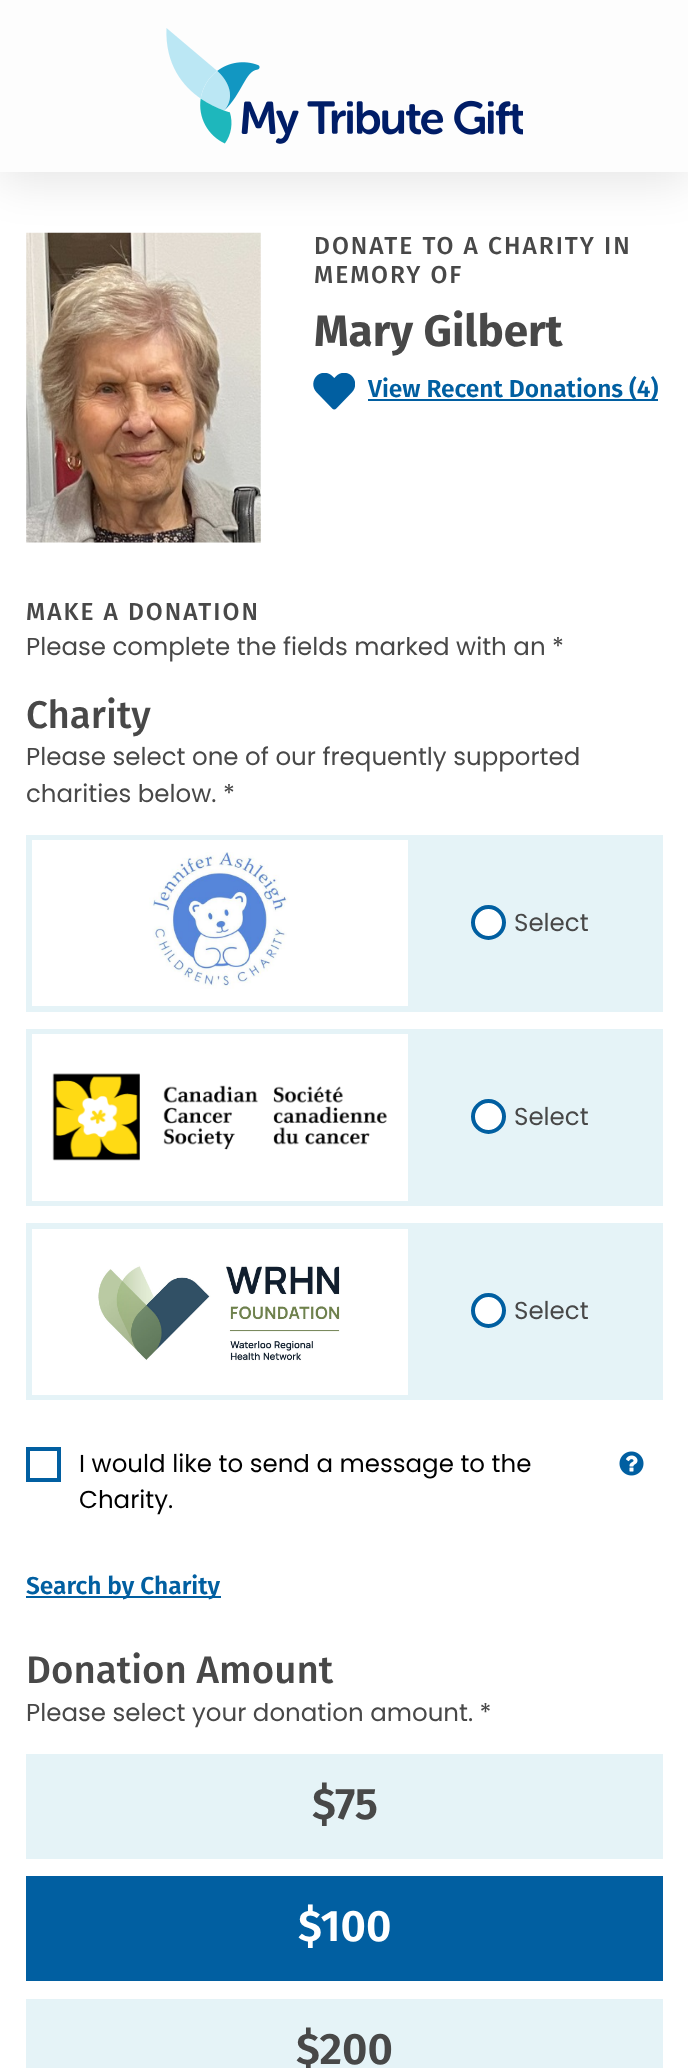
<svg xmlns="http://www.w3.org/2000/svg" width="688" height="2068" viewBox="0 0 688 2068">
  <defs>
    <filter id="blur1" x="-50%" y="-200%" width="200%" height="500%"><feGaussianBlur stdDeviation="23"/></filter>
  </defs>
  <rect width="100%" height="100%" fill="#ffffff"/>
  <image x="26" y="232" width="235" height="311" href="img2.png"/>
  <rect x="0" y="11" width="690" height="171" fill="#000000" fill-opacity="0.1" filter="url(#blur1)"/>
  <rect x="0" y="0" width="688" height="172" fill="#fdfdfd"/>
  <image x="166" y="28" width="357" height="116" href="img1.png"/>
  <text x="314" y="254" font-family="Fira Sans" font-size="24.5" font-weight="500" letter-spacing="2" fill="#484848">DONATE TO A CHARITY IN</text>
  <text x="314" y="283" font-family="Fira Sans" font-size="24.5" font-weight="500" letter-spacing="2" fill="#484848">MEMORY OF</text>
  <text x="314" y="346" font-family="Fira Sans" font-size="44" font-weight="bold" fill="#484848">Mary Gilbert</text>
  <image x="313" y="373" width="42" height="37" href="img3.png"/>
  <rect x="368" y="399" width="290" height="2" fill="#015fa1"/>
  <text x="368" y="397" font-family="Fira Sans" font-size="24.5" font-weight="600" fill="#015fa1">View Recent Donations (4)</text>
  <text x="26" y="620" font-family="Fira Sans" font-size="24.5" font-weight="500" letter-spacing="2" fill="#484848">MAKE A DONATION</text>
  <text x="26" y="655" font-family="Poppins" font-size="24.5" fill="#484848">Please complete the fields marked with an *</text>
  <text x="26" y="728" font-family="Fira Sans" font-size="38.5" font-weight="500" fill="#484848">Charity</text>
  <text x="26" y="765" font-family="Poppins" font-size="24.5" fill="#484848">Please select one of our frequently supported</text>
  <text x="26" y="802" font-family="Poppins" font-size="24.5" fill="#484848">charities below. *</text>
  <rect x="26" y="835" width="637" height="177" fill="#e5f3f7"/>
  <rect x="32" y="840" width="376" height="166" fill="#ffffff"/>
  <image x="149" y="852" width="141" height="137" href="img4.png"/>
  <circle cx="488.5" cy="922.5" r="15.5" fill="#ffffff" stroke="#015fa1" stroke-width="4"/>
  <text x="514" y="931" font-family="Poppins" font-size="24.5" fill="#484848">Select</text>
  <rect x="26" y="1029" width="637" height="177" fill="#e5f3f7"/>
  <rect x="32" y="1034" width="376" height="167" fill="#ffffff"/>
  <image x="52" y="1073" width="335" height="88" href="img5.png"/>
  <circle cx="488.5" cy="1116.5" r="15.5" fill="#ffffff" stroke="#015fa1" stroke-width="4"/>
  <text x="514" y="1125" font-family="Poppins" font-size="24.5" fill="#484848">Select</text>
  <rect x="26" y="1223" width="637" height="177" fill="#e5f3f7"/>
  <rect x="32" y="1229" width="376" height="166" fill="#ffffff"/>
  <image x="98" y="1265" width="242" height="96" href="img6.png"/>
  <circle cx="488.5" cy="1310.5" r="15.5" fill="#ffffff" stroke="#015fa1" stroke-width="4"/>
  <text x="514" y="1319" font-family="Poppins" font-size="24.5" fill="#484848">Select</text>
  <rect x="28" y="1449" width="31" height="31" fill="none" stroke="#015fa1" stroke-width="4"/>
  <text x="79" y="1472" font-family="Poppins" font-size="24.5" fill="#000000">I would like to send a message to the</text>
  <text x="79" y="1508" font-family="Poppins" font-size="24.5" fill="#000000">Charity.</text>
  <image x="619" y="1451" width="25" height="25" href="img7.png"/>
  <rect x="26" y="1596" width="195" height="2" fill="#015fa1"/>
  <text x="26" y="1594" font-family="Fira Sans" font-size="24.5" font-weight="600" fill="#015fa1">Search by Charity</text>
  <text x="26" y="1683" font-family="Fira Sans" font-size="38.5" font-weight="500" fill="#484848">Donation Amount</text>
  <text x="26" y="1721" font-family="Poppins" font-size="24.5" fill="#484848">Please select your donation amount. *</text>
  <rect x="26" y="1754" width="637" height="105" fill="#e5f3f7"/>
  <text x="312" y="1819" font-family="Fira Sans" font-size="44" font-weight="600" fill="#484848">$75</text>
  <rect x="26" y="1876" width="637" height="105" fill="#015fa1"/>
  <text x="298" y="1941" font-family="Fira Sans" font-size="44" font-weight="600" fill="#ffffff">$100</text>
  <rect x="26" y="1999" width="637" height="69" fill="#e5f3f7"/>
  <text x="296" y="2064" font-family="Fira Sans" font-size="44" font-weight="600" fill="#484848">$200</text>
</svg>
